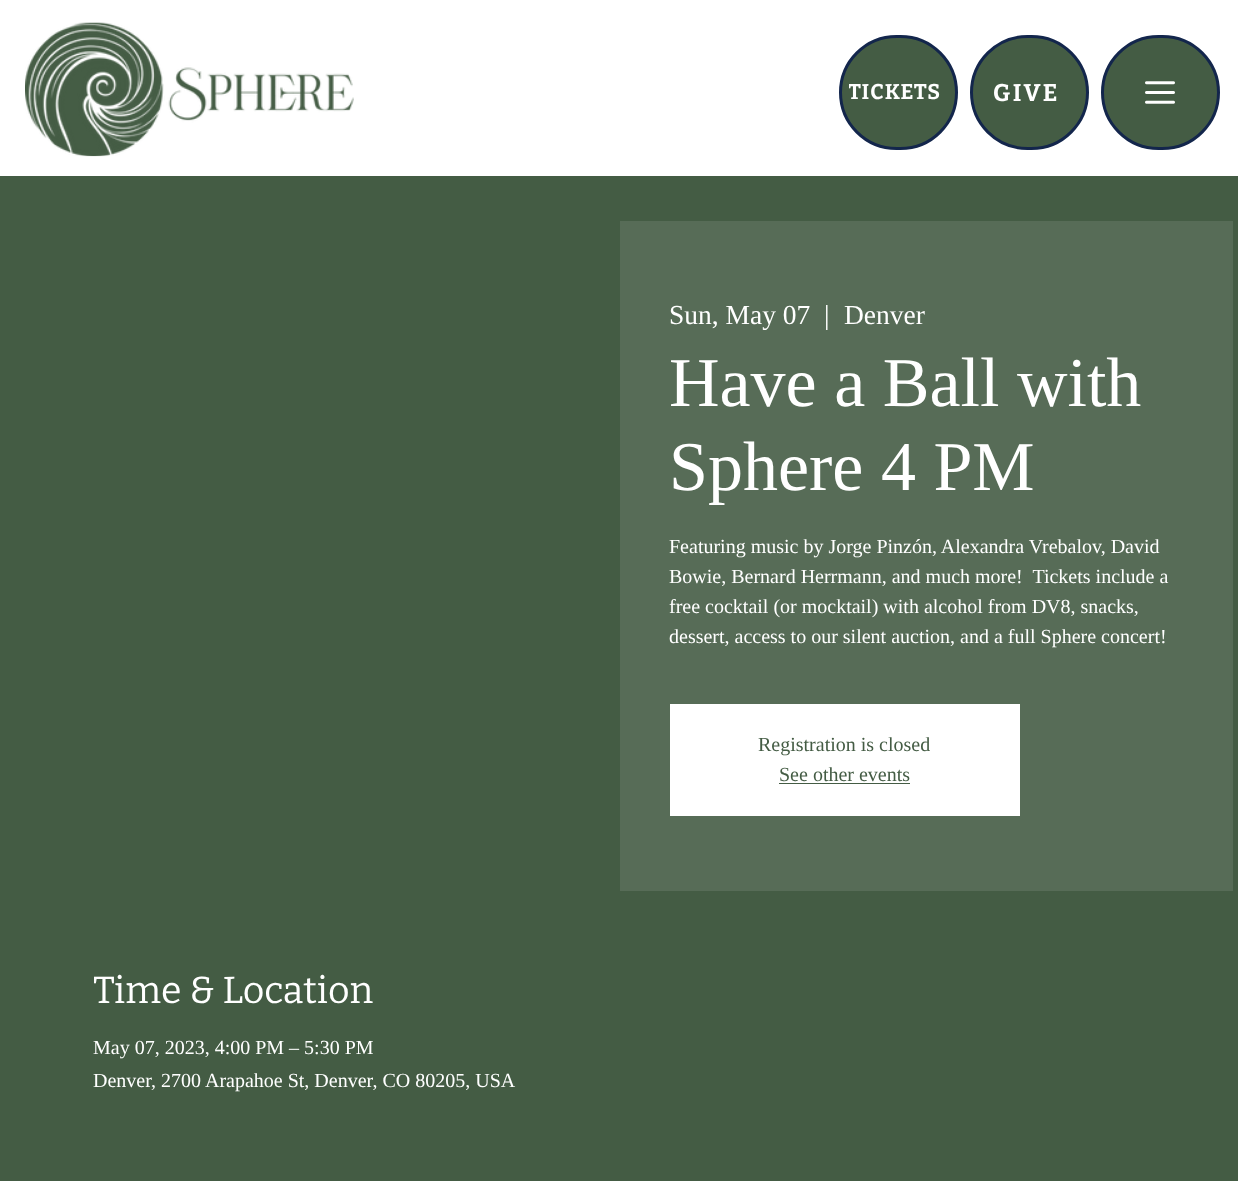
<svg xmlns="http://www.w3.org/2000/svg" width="1238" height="1181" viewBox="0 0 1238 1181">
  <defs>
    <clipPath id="clip1"><rect x="849" y="80" width="92" height="26"/></clipPath>
  </defs>
  <rect width="100%" height="100%" fill="#445c44"/>
  <rect x="0" y="0" width="1238" height="176" fill="#ffffff"/>
  <image x="25" y="22" width="329" height="135" href="img1.png"/>
  <rect x="840.5" y="36.5" width="116" height="112" rx="56" fill="#445c44" stroke="#13264c" stroke-width="3"/>
  <g clip-path="url(#clip1)">
    <text x="848" y="99" font-family="Bitter" font-size="21.25" font-weight="bold" letter-spacing="1" fill="#ffffff">TICKETS</text>
  </g>
  <rect x="971.5" y="36.5" width="116" height="112" rx="56" fill="#445c44" stroke="#13264c" stroke-width="3"/>
  <text x="993" y="101" font-family="Bitter" font-size="24" font-weight="bold" letter-spacing="2.5" fill="#ffffff">GIVE</text>
  <rect x="1102.5" y="36.5" width="116" height="112" rx="56" fill="#445c44" stroke="#13264c" stroke-width="3"/>
  <image x="1145" y="81" width="30" height="23" href="img2.png"/>
  <rect x="620" y="221" width="613" height="670" fill="#576c57"/>
  <text x="669" y="324" font-family="Liberation Serif" font-size="27.5" fill="#ffffff">Sun, May 07</text>
  <text x="824" y="324" font-family="Liberation Serif" font-size="27.5" fill="#ffffff">|</text>
  <text x="844" y="324" font-family="Liberation Serif" font-size="27.5" fill="#ffffff">Denver</text>
  <text x="669" y="406" font-family="Liberation Serif" font-size="70" fill="#ffffff">Have a Ball with</text>
  <text x="669" y="490" font-family="Liberation Serif" font-size="70" fill="#ffffff">Sphere 4 PM</text>
  <text x="669" y="553" font-family="Liberation Serif" font-size="20" fill="#ffffff">Featuring music by Jorge Pinzón, Alexandra Vrebalov, David</text>
  <text x="669" y="583" font-family="Liberation Serif" font-size="20" fill="#ffffff" xml:space="preserve">Bowie, Bernard Herrmann, and much more!  Tickets include a</text>
  <text x="669" y="613" font-family="Liberation Serif" font-size="20" fill="#ffffff">free cocktail (or mocktail) with alcohol from DV8, snacks,</text>
  <text x="669" y="643" font-family="Liberation Serif" font-size="20" fill="#ffffff">dessert, access to our silent auction, and a full Sphere concert!</text>
  <rect x="670" y="704" width="350" height="112" fill="#ffffff"/>
  <text x="758" y="751" font-family="Liberation Serif" font-size="20" fill="#445c44">Registration is closed</text>
  <text x="779" y="781" font-family="Liberation Serif" font-size="20" fill="#445c44">See other events</text>
  <rect x="779" y="783" width="131" height="1" fill="#445c44"/>
  <text x="93" y="1003" font-family="Bitter" font-size="37.5" fill="#ffffff">Time &amp; Location</text>
  <text x="93" y="1054" font-family="Liberation Serif" font-size="20" fill="#ffffff">May 07, 2023, 4:00 PM – 5:30 PM</text>
  <text x="93" y="1087" font-family="Liberation Serif" font-size="20" fill="#ffffff">Denver, 2700 Arapahoe St, Denver, CO 80205, USA</text>
</svg>
